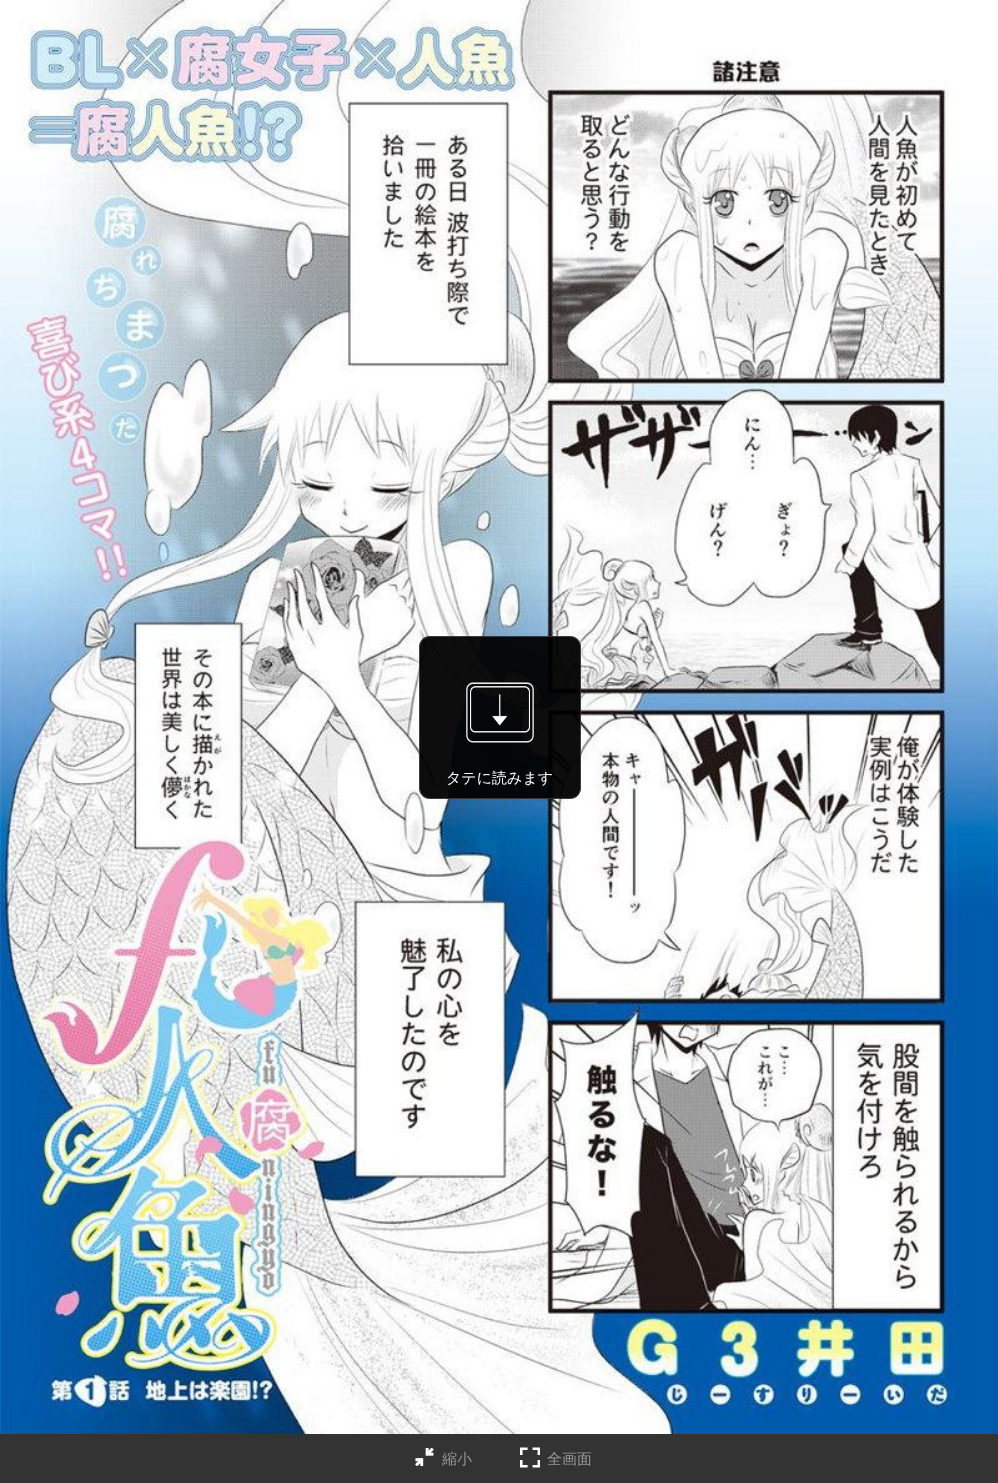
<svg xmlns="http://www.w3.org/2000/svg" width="998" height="1483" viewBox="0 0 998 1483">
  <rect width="100%" height="100%" fill="#ffffff"/>
  <image x="0" y="0" width="998" height="1434" href="img1.png"/>
  <rect x="419" y="636" width="162" height="163" rx="11" fill="#000000" fill-opacity="0.95"/>
  <image x="466" y="682" width="68" height="61" href="img2.png"/>
  <rect x="419.5" y="636.5" width="161" height="162" rx="10.5" fill="none" stroke="#ffffff" stroke-opacity="0.2"/>
  <text x="446" y="783" font-family="WenQuanYi Zen Hei" font-size="15" font-weight="500" fill="#ffffff">タテに読みます</text>
  <rect x="0" y="1434" width="998" height="49" fill="#333333"/>
  <image x="415" y="1448" width="19" height="18" href="img3.png"/>
  <text x="442" y="1464" font-family="WenQuanYi Zen Hei" font-size="15" font-weight="500" fill="#999999">縮小</text>
  <image x="520" y="1447" width="20" height="21" href="img4.png"/>
  <text x="547" y="1464" font-family="WenQuanYi Zen Hei" font-size="15" font-weight="500" fill="#999999">全画面</text>
</svg>
